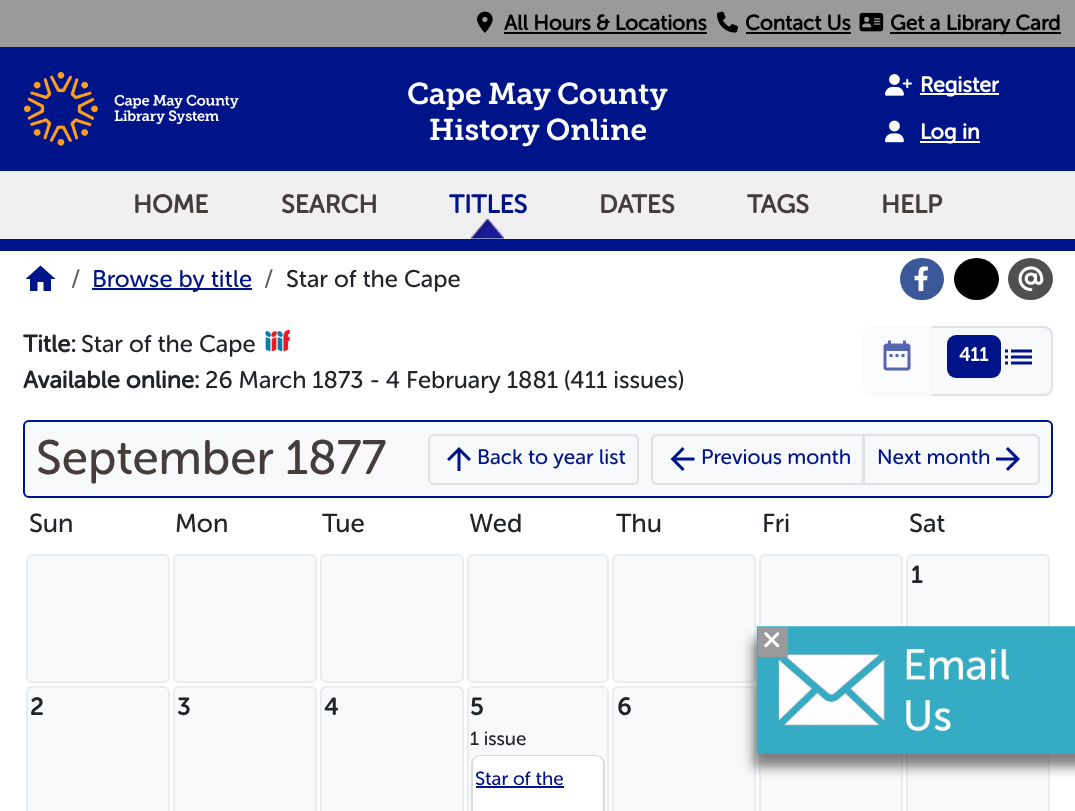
<svg xmlns="http://www.w3.org/2000/svg" width="1075" height="811" viewBox="0 0 1075 811">
  <defs>
    <filter id="blur1" x="-50%" y="-200%" width="200%" height="500%"><feGaussianBlur stdDeviation="6"/></filter>
  </defs>
  <rect width="100%" height="100%" fill="#ffffff"/>
  <rect x="0" y="0" width="1075" height="47" fill="#9a9a9a"/>
  <image x="477" y="11" width="16" height="22" href="img1.png"/>
  <text x="504" y="30" font-family="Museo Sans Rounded" font-size="21" font-weight="bold" fill="#000000">All Hours &amp; Locations</text>
  <rect x="504" y="32" width="203" height="2" fill="#000000"/>
  <image x="717" y="11" width="21" height="22" href="img2.png"/>
  <text x="745" y="30" font-family="Museo Sans Rounded" font-size="21" font-weight="bold" fill="#000000">Contact Us</text>
  <rect x="746" y="32" width="105" height="2" fill="#000000"/>
  <image x="859" y="12" width="25" height="20" href="img3.png"/>
  <rect x="890" y="32" width="171" height="2" fill="#000000"/>
  <text x="890" y="30" font-family="Museo Sans Rounded" font-size="21" font-weight="bold" fill="#000000">Get a Library Card</text>
  <rect x="0" y="47" width="1075" height="124" fill="#001489"/>
  <image x="24" y="72" width="215" height="74" href="img4.png"/>
  <text x="407" y="104" font-family="'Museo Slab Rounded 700'" font-size="30" font-weight="600" fill="#ffffff">Cape May County</text>
  <text x="429" y="140" font-family="'Museo Slab Rounded 700'" font-size="30" font-weight="600" fill="#ffffff">History Online</text>
  <image x="885" y="74" width="27" height="22" href="img5.png"/>
  <rect x="920" y="93" width="79" height="2" fill="#ffffff"/>
  <text x="920" y="92" font-family="Museo Sans Rounded" font-size="21.5" font-weight="bold" fill="#ffffff">Register</text>
  <image x="885" y="120" width="19" height="23" href="img6.png"/>
  <rect x="920" y="141" width="60" height="2" fill="#ffffff"/>
  <text x="920" y="139" font-family="Museo Sans Rounded" font-size="21.5" font-weight="bold" fill="#ffffff">Log in</text>
  <rect x="0" y="171" width="1075" height="68" fill="#f0f0f0"/>
  <rect x="0" y="239" width="1075" height="12" fill="#001489"/>
  <text x="133" y="213" font-family="Museo Sans Rounded" font-size="25.5" font-weight="bold" fill="#453d3c">HOME</text>
  <text x="281" y="213" font-family="Museo Sans Rounded" font-size="25.5" font-weight="bold" fill="#453d3c">SEARCH</text>
  <image x="471" y="219" width="33" height="20" href="img7.png"/>
  <text x="449" y="213" font-family="Museo Sans Rounded" font-size="25.5" font-weight="bold" fill="#001489">TITLES</text>
  <text x="599" y="213" font-family="Museo Sans Rounded" font-size="25.5" font-weight="bold" fill="#453d3c">DATES</text>
  <text x="747" y="213" font-family="Museo Sans Rounded" font-size="25.5" font-weight="bold" fill="#453d3c">TAGS</text>
  <text x="881" y="213" font-family="Museo Sans Rounded" font-size="25.5" font-weight="bold" fill="#453d3c">HELP</text>
  <path d="M37.5 291V282H43.5V291H51V279H55.5L40.5 265.5L25.5 279H30V291Z" fill="#001489"/>
  <text x="71" y="287" font-family="Museo Sans Rounded" font-size="24" fill="#595c5f">/</text>
  <rect x="92" y="288" width="160" height="2" fill="#001489"/>
  <text x="92" y="287" font-family="Museo Sans Rounded" font-size="24" fill="#001489">Browse by title</text>
  <text x="264" y="287" font-family="Museo Sans Rounded" font-size="24" fill="#595c5f">/</text>
  <text x="286" y="287" font-family="Museo Sans Rounded" font-size="24" fill="#212529">Star of the Cape</text>
  <rect x="900" y="258" width="44" height="42" rx="21" fill="#3b5998"/>
  <image x="914" y="266" width="14" height="26" href="img8.png"/>
  <ellipse cx="976.5" cy="279" rx="22.5" ry="21" fill="#000000"/>
  <ellipse cx="1030.5" cy="279" rx="22.5" ry="21" fill="#505050"/>
  <image x="1018" y="266" width="26" height="26" href="img9.png"/>
  <text x="23" y="352" font-family="Museo Sans Rounded" font-size="24" font-weight="bold" fill="#212529">Title:</text>
  <text x="81" y="352" font-family="Museo Sans Rounded" font-size="24" fill="#212529">Star of the Cape</text>
  <image x="265" y="329" width="25" height="23" href="img10.png"/>
  <path d="M931 327H1044C1048.5 327 1052 330.5 1052 335V387C1052 391.5 1048.5 395 1044 395H931Z" fill="#f8f9fa" stroke="#dee2e6" stroke-width="2"/>
  <path d="M872 326H932V396H872C867 396 863 392 863 387V335C863 330 867 326 872 326Z" fill="#f8f9fa" fill-opacity="0.65"/>
  <path d="M872 327H931V395H872C867.5 395 864 391.5 864 387V335C864 330.5 867.5 327 872 327Z" fill="none" stroke="#f8f9fa" stroke-opacity="0.65" stroke-width="2"/>
  <image x="883" y="340" width="28" height="31" href="img11.png"/>
  <rect x="947" y="335" width="54" height="43" rx="9" fill="#001489"/>
  <text x="959" y="361" font-family="Museo Sans Rounded" font-size="19" font-weight="bold" fill="#ffffff">411</text>
  <image x="1005" y="349" width="27" height="16" href="img12.png"/>
  <text x="23" y="388" font-family="Museo Sans Rounded" font-size="24" font-weight="bold" fill="#212529">Available online:</text>
  <text x="205" y="388" font-family="Museo Sans Rounded" font-size="24" fill="#212529">26 March 1873 - 4 February 1881 (411 issues)</text>
  <rect x="24" y="421" width="1028" height="76" rx="5" fill="#f8f9fa" stroke="#001489" stroke-width="2"/>
  <text x="36" y="474" font-family="Museo Sans Rounded" font-size="48" fill="#453d3c">September 1877</text>
  <rect x="429" y="435" width="209" height="49" rx="5" fill="none" stroke="#dee2e6" stroke-width="2"/>
  <image x="447" y="447" width="24" height="24" href="img13.png"/>
  <text x="477" y="464" font-family="Museo Sans Rounded" font-size="21" fill="#001489">Back to year list</text>
  <path d="M657 435H863V484H657C654 484 652 482 652 479V440C652 437 654 435 657 435Z" fill="none" stroke="#dee2e6" stroke-width="2"/>
  <image x="670" y="447" width="25" height="24" href="img14.png"/>
  <text x="701" y="464" font-family="Museo Sans Rounded" font-size="21" fill="#001489">Previous month</text>
  <path d="M864 435H1034C1037 435 1039 437 1039 440V479C1039 482 1037 484 1034 484H864Z" fill="#f8f9fa" stroke="#dee2e6" stroke-width="2"/>
  <text x="877" y="464" font-family="Museo Sans Rounded" font-size="21" fill="#001489">Next month</text>
  <image x="996" y="447" width="24" height="24" href="img15.png"/>
  <text x="29" y="532" font-family="Museo Sans Rounded" font-size="26" fill="#212529">Sun</text>
  <text x="175" y="532" font-family="Museo Sans Rounded" font-size="26" fill="#212529">Mon</text>
  <text x="322" y="532" font-family="Museo Sans Rounded" font-size="26" fill="#212529">Tue</text>
  <text x="469" y="532" font-family="Museo Sans Rounded" font-size="26" fill="#212529">Wed</text>
  <text x="616" y="532" font-family="Museo Sans Rounded" font-size="26" fill="#212529">Thu</text>
  <text x="762" y="532" font-family="Museo Sans Rounded" font-size="26" fill="#212529">Fri</text>
  <text x="909" y="532" font-family="Museo Sans Rounded" font-size="26" fill="#212529">Sat</text>
  <rect x="27" y="555" width="142" height="127" rx="5" fill="#f8f9fa" stroke="#e9ecef" stroke-width="2"/>
  <rect x="174" y="555" width="142" height="127" rx="5" fill="#f8f9fa" stroke="#e9ecef" stroke-width="2"/>
  <rect x="321" y="555" width="142" height="127" rx="5" fill="#f8f9fa" stroke="#e9ecef" stroke-width="2"/>
  <rect x="468" y="555" width="140" height="127" rx="5" fill="#f8f9fa" stroke="#e9ecef" stroke-width="2"/>
  <rect x="613" y="555" width="142" height="127" rx="5" fill="#f8f9fa" stroke="#e9ecef" stroke-width="2"/>
  <rect x="760" y="555" width="142" height="127" rx="5" fill="#f8f9fa" stroke="#e9ecef" stroke-width="2"/>
  <rect x="907" y="555" width="142" height="127" rx="5" fill="#f8f9fa" stroke="#e9ecef" stroke-width="2"/>
  <text x="911" y="583" font-family="Museo Sans Rounded" font-size="24" font-weight="bold" fill="#212529">1</text>
  <rect x="27" y="687" width="142" height="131" rx="5" fill="#f8f9fa" stroke="#e9ecef" stroke-width="2"/>
  <text x="30" y="715" font-family="Museo Sans Rounded" font-size="24" font-weight="bold" fill="#212529">2</text>
  <rect x="174" y="687" width="142" height="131" rx="5" fill="#f8f9fa" stroke="#e9ecef" stroke-width="2"/>
  <text x="177" y="715" font-family="Museo Sans Rounded" font-size="24" font-weight="bold" fill="#212529">3</text>
  <rect x="321" y="687" width="142" height="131" rx="5" fill="#f8f9fa" stroke="#e9ecef" stroke-width="2"/>
  <text x="324" y="715" font-family="Museo Sans Rounded" font-size="24" font-weight="bold" fill="#212529">4</text>
  <rect x="468" y="687" width="140" height="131" rx="5" fill="#f8f9fa" stroke="#e9ecef" stroke-width="2"/>
  <text x="470" y="715" font-family="Museo Sans Rounded" font-size="24" font-weight="bold" fill="#212529">5</text>
  <text x="470" y="745" font-family="Museo Sans Rounded" font-size="19" fill="#212529">1 issue</text>
  <rect x="471" y="755" width="134" height="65" rx="9" fill="#ffffff"/>
  <rect x="472" y="756" width="132" height="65" rx="8" fill="none" stroke="#333333" stroke-opacity="0.18" stroke-width="2"/>
  <rect x="473" y="756" width="130" height="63" rx="8" fill="#ffffff"/>
  <text x="475" y="785" font-family="Museo Sans Rounded" font-size="19" fill="#001489">Star of the</text>
  <rect x="476" y="786" width="88" height="2" fill="#001489"/>
  <rect x="613" y="687" width="142" height="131" rx="5" fill="#f8f9fa" stroke="#e9ecef" stroke-width="2"/>
  <text x="617" y="715" font-family="Museo Sans Rounded" font-size="24" font-weight="bold" fill="#212529">6</text>
  <rect x="761" y="753" width="140" height="58" fill="#f8f9fa"/>
  <rect x="760" y="687" width="142" height="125" fill="none" stroke="#e9ecef" stroke-width="2"/>
  <rect x="908" y="753" width="140" height="58" fill="#f8f9fa"/>
  <rect x="907" y="687" width="142" height="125" fill="none" stroke="#e9ecef" stroke-width="2"/>
  <rect x="753" y="639" width="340" height="128" fill="#2b2b2b" fill-opacity="0.6" filter="url(#blur1)"/>
  <image x="756" y="626" width="319" height="128" href="img16.png"/>
  <rect x="758" y="627" width="30" height="30" fill="#9a9a9a"/>
  <image x="764" y="632" width="16" height="16" href="img17.png"/>
</svg>
